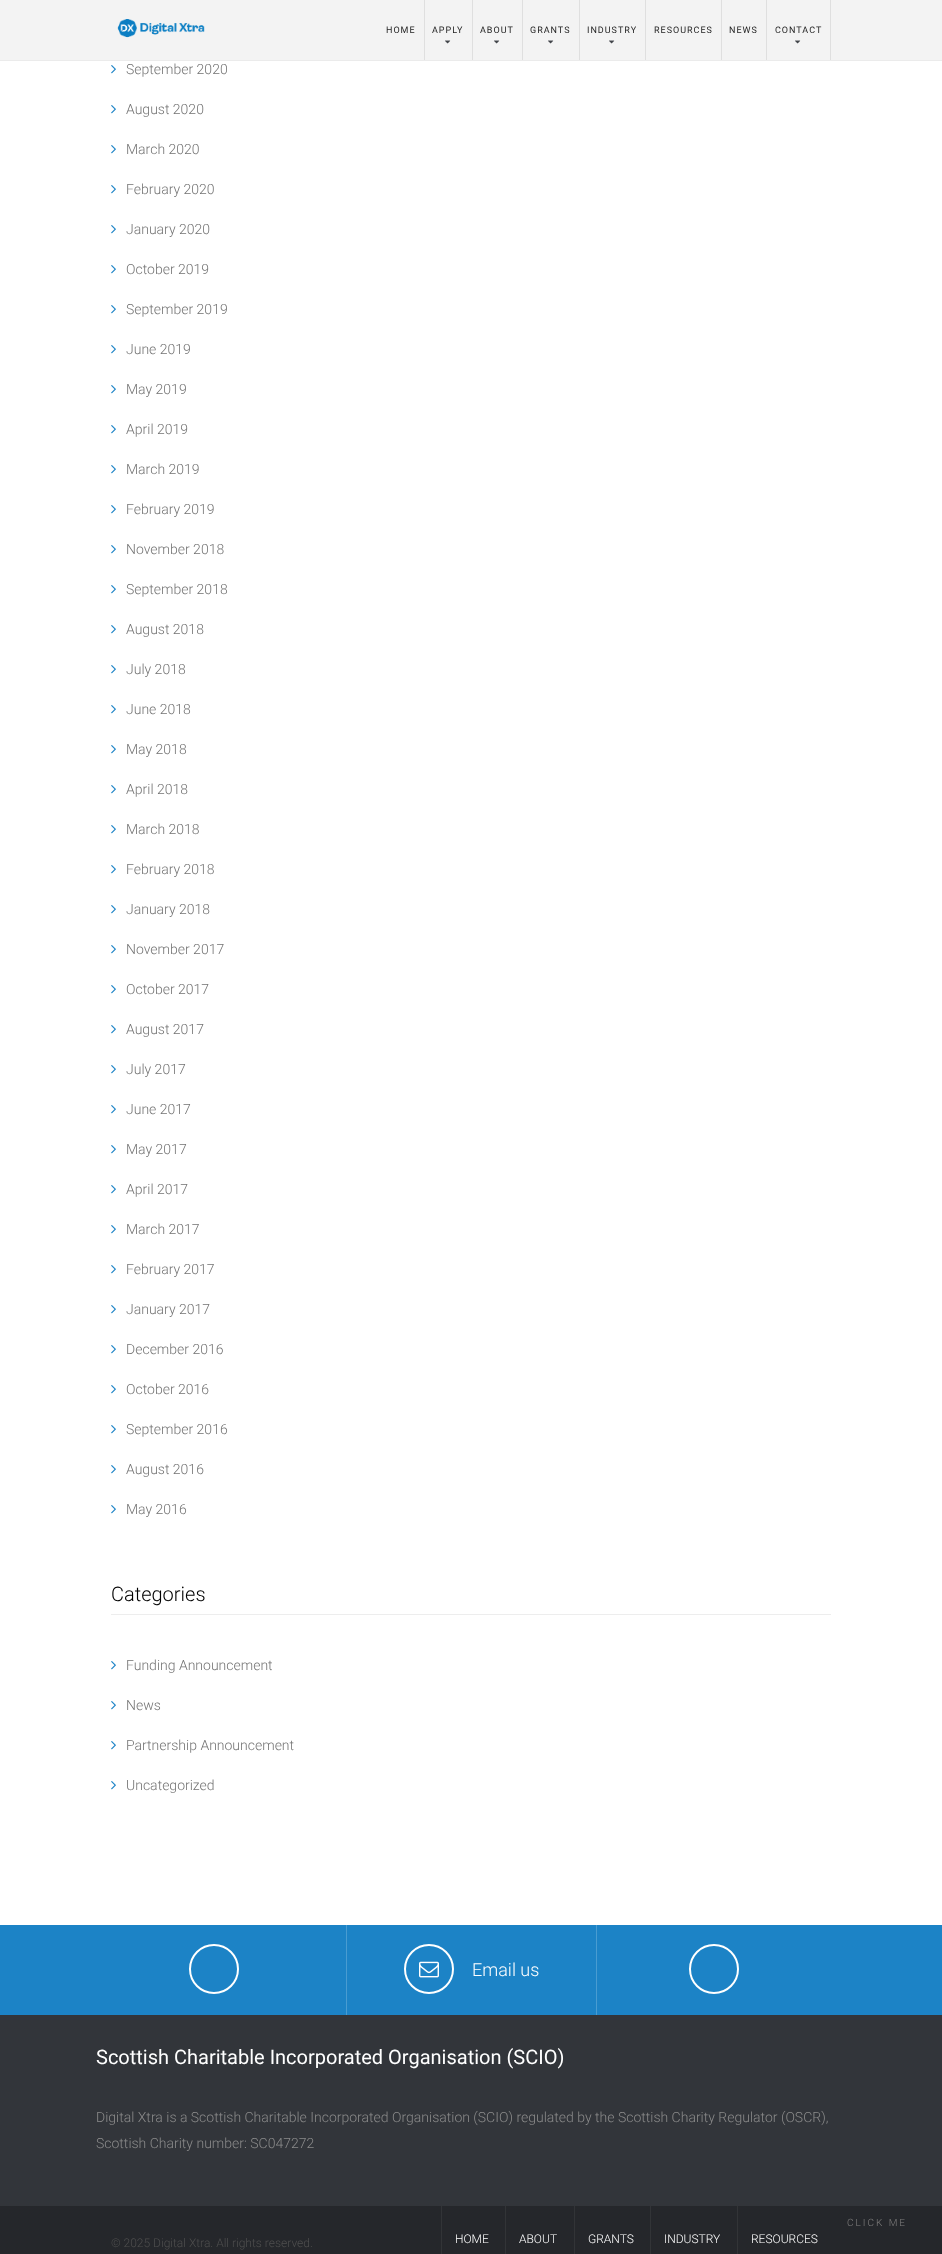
<svg xmlns="http://www.w3.org/2000/svg" width="942" height="2254" viewBox="0 0 942 2254">
  <defs>
    <filter id="blur1" x="-50%" y="-200%" width="200%" height="500%"><feGaussianBlur stdDeviation="0.5"/></filter>
  </defs>
  <rect width="100%" height="100%" fill="#ffffff"/>
  <rect x="0" y="1" width="942" height="60" fill="#323232" fill-opacity="0.1" filter="url(#blur1)"/>
  <rect x="0" y="0" width="942" height="60" fill="#f3f3f3"/>
  <image x="117" y="19" width="88" height="19" href="img1.png"/>
  <rect x="424" y="0" width="1" height="60" fill="#dfdfdf"/>
  <text x="386" y="33" font-family="Roboto" font-size="9" letter-spacing="1" fill="#252525">HOME</text>
  <rect x="472" y="0" width="1" height="60" fill="#dfdfdf"/>
  <text x="432" y="33" font-family="Roboto" font-size="9" letter-spacing="1" fill="#252525">APPLY</text>
  <image x="445" y="40" width="6" height="4" href="img2.png"/>
  <rect x="522" y="0" width="1" height="60" fill="#dfdfdf"/>
  <text x="480" y="33" font-family="Roboto" font-size="9" letter-spacing="1" fill="#252525">ABOUT</text>
  <image x="494" y="40" width="6" height="4" href="img2.png"/>
  <rect x="579" y="0" width="1" height="60" fill="#dfdfdf"/>
  <text x="530" y="33" font-family="Roboto" font-size="9" letter-spacing="1" fill="#252525">GRANTS</text>
  <image x="548" y="40" width="6" height="4" href="img2.png"/>
  <rect x="645" y="0" width="1" height="60" fill="#dfdfdf"/>
  <text x="587" y="33" font-family="Roboto" font-size="9" letter-spacing="1" fill="#252525">INDUSTRY</text>
  <image x="609" y="40" width="6" height="4" href="img2.png"/>
  <rect x="721" y="0" width="1" height="60" fill="#dfdfdf"/>
  <text x="654" y="33" font-family="Roboto" font-size="9" letter-spacing="1" fill="#252525">RESOURCES</text>
  <rect x="766" y="0" width="1" height="60" fill="#dfdfdf"/>
  <text x="729" y="33" font-family="Roboto" font-size="9" letter-spacing="1" fill="#252525">NEWS</text>
  <rect x="830" y="0" width="1" height="60" fill="#dfdfdf"/>
  <text x="775" y="33" font-family="Roboto" font-size="9" letter-spacing="1" fill="#252525">CONTACT</text>
  <image x="795" y="40" width="6" height="4" href="img2.png"/>
  <image x="111" y="65" width="5" height="9" href="img3.png"/>
  <text x="126" y="74" font-family="Roboto" font-size="14" font-weight="300" fill="#737373">September 2020</text>
  <image x="111" y="105" width="5" height="9" href="img3.png"/>
  <text x="126" y="114" font-family="Roboto" font-size="14" font-weight="300" fill="#737373">August 2020</text>
  <image x="111" y="145" width="5" height="9" href="img3.png"/>
  <text x="126" y="154" font-family="Roboto" font-size="14" font-weight="300" fill="#737373">March 2020</text>
  <image x="111" y="185" width="5" height="9" href="img3.png"/>
  <text x="126" y="194" font-family="Roboto" font-size="14" font-weight="300" fill="#737373">February 2020</text>
  <image x="111" y="225" width="5" height="9" href="img3.png"/>
  <text x="126" y="234" font-family="Roboto" font-size="14" font-weight="300" fill="#737373">January 2020</text>
  <image x="111" y="265" width="5" height="9" href="img3.png"/>
  <text x="126" y="274" font-family="Roboto" font-size="14" font-weight="300" fill="#737373">October 2019</text>
  <image x="111" y="305" width="5" height="9" href="img3.png"/>
  <text x="126" y="314" font-family="Roboto" font-size="14" font-weight="300" fill="#737373">September 2019</text>
  <image x="111" y="345" width="5" height="9" href="img3.png"/>
  <text x="126" y="354" font-family="Roboto" font-size="14" font-weight="300" fill="#737373">June 2019</text>
  <image x="111" y="385" width="5" height="9" href="img3.png"/>
  <text x="126" y="394" font-family="Roboto" font-size="14" font-weight="300" fill="#737373">May 2019</text>
  <image x="111" y="425" width="5" height="9" href="img3.png"/>
  <text x="126" y="434" font-family="Roboto" font-size="14" font-weight="300" fill="#737373">April 2019</text>
  <image x="111" y="465" width="5" height="9" href="img3.png"/>
  <text x="126" y="474" font-family="Roboto" font-size="14" font-weight="300" fill="#737373">March 2019</text>
  <image x="111" y="505" width="5" height="9" href="img3.png"/>
  <text x="126" y="514" font-family="Roboto" font-size="14" font-weight="300" fill="#737373">February 2019</text>
  <image x="111" y="545" width="5" height="9" href="img3.png"/>
  <text x="126" y="554" font-family="Roboto" font-size="14" font-weight="300" fill="#737373">November 2018</text>
  <image x="111" y="585" width="5" height="9" href="img3.png"/>
  <text x="126" y="594" font-family="Roboto" font-size="14" font-weight="300" fill="#737373">September 2018</text>
  <image x="111" y="625" width="5" height="9" href="img3.png"/>
  <text x="126" y="634" font-family="Roboto" font-size="14" font-weight="300" fill="#737373">August 2018</text>
  <image x="111" y="665" width="5" height="9" href="img3.png"/>
  <text x="126" y="674" font-family="Roboto" font-size="14" font-weight="300" fill="#737373">July 2018</text>
  <image x="111" y="705" width="5" height="9" href="img3.png"/>
  <text x="126" y="714" font-family="Roboto" font-size="14" font-weight="300" fill="#737373">June 2018</text>
  <image x="111" y="745" width="5" height="9" href="img3.png"/>
  <text x="126" y="754" font-family="Roboto" font-size="14" font-weight="300" fill="#737373">May 2018</text>
  <image x="111" y="785" width="5" height="9" href="img3.png"/>
  <text x="126" y="794" font-family="Roboto" font-size="14" font-weight="300" fill="#737373">April 2018</text>
  <image x="111" y="825" width="5" height="9" href="img3.png"/>
  <text x="126" y="834" font-family="Roboto" font-size="14" font-weight="300" fill="#737373">March 2018</text>
  <image x="111" y="865" width="5" height="9" href="img3.png"/>
  <text x="126" y="874" font-family="Roboto" font-size="14" font-weight="300" fill="#737373">February 2018</text>
  <image x="111" y="905" width="5" height="9" href="img3.png"/>
  <text x="126" y="914" font-family="Roboto" font-size="14" font-weight="300" fill="#737373">January 2018</text>
  <image x="111" y="945" width="5" height="9" href="img3.png"/>
  <text x="126" y="954" font-family="Roboto" font-size="14" font-weight="300" fill="#737373">November 2017</text>
  <image x="111" y="985" width="5" height="9" href="img3.png"/>
  <text x="126" y="994" font-family="Roboto" font-size="14" font-weight="300" fill="#737373">October 2017</text>
  <image x="111" y="1025" width="5" height="9" href="img3.png"/>
  <text x="126" y="1034" font-family="Roboto" font-size="14" font-weight="300" fill="#737373">August 2017</text>
  <image x="111" y="1065" width="5" height="9" href="img3.png"/>
  <text x="126" y="1074" font-family="Roboto" font-size="14" font-weight="300" fill="#737373">July 2017</text>
  <image x="111" y="1105" width="5" height="9" href="img3.png"/>
  <text x="126" y="1114" font-family="Roboto" font-size="14" font-weight="300" fill="#737373">June 2017</text>
  <image x="111" y="1145" width="5" height="9" href="img3.png"/>
  <text x="126" y="1154" font-family="Roboto" font-size="14" font-weight="300" fill="#737373">May 2017</text>
  <image x="111" y="1185" width="5" height="9" href="img3.png"/>
  <text x="126" y="1194" font-family="Roboto" font-size="14" font-weight="300" fill="#737373">April 2017</text>
  <image x="111" y="1225" width="5" height="9" href="img3.png"/>
  <text x="126" y="1234" font-family="Roboto" font-size="14" font-weight="300" fill="#737373">March 2017</text>
  <image x="111" y="1265" width="5" height="9" href="img3.png"/>
  <text x="126" y="1274" font-family="Roboto" font-size="14" font-weight="300" fill="#737373">February 2017</text>
  <image x="111" y="1305" width="5" height="9" href="img3.png"/>
  <text x="126" y="1314" font-family="Roboto" font-size="14" font-weight="300" fill="#737373">January 2017</text>
  <image x="111" y="1345" width="5" height="9" href="img3.png"/>
  <text x="126" y="1354" font-family="Roboto" font-size="14" font-weight="300" fill="#737373">December 2016</text>
  <image x="111" y="1385" width="5" height="9" href="img3.png"/>
  <text x="126" y="1394" font-family="Roboto" font-size="14" font-weight="300" fill="#737373">October 2016</text>
  <image x="111" y="1425" width="5" height="9" href="img3.png"/>
  <text x="126" y="1434" font-family="Roboto" font-size="14" font-weight="300" fill="#737373">September 2016</text>
  <image x="111" y="1465" width="5" height="9" href="img3.png"/>
  <text x="126" y="1474" font-family="Roboto" font-size="14" font-weight="300" fill="#737373">August 2016</text>
  <image x="111" y="1505" width="5" height="9" href="img3.png"/>
  <text x="126" y="1514" font-family="Roboto" font-size="14" font-weight="300" fill="#737373">May 2016</text>
  <rect x="111" y="1614" width="720" height="1" fill="#ededed"/>
  <text x="111" y="1601" font-family="Roboto" font-size="20" font-weight="300" fill="#000000">Categories</text>
  <image x="111" y="1661" width="5" height="9" href="img3.png"/>
  <text x="126" y="1670" font-family="Roboto" font-size="14" font-weight="300" fill="#737373">Funding Announcement</text>
  <image x="111" y="1701" width="5" height="9" href="img3.png"/>
  <text x="126" y="1710" font-family="Roboto" font-size="14" font-weight="300" fill="#737373">News</text>
  <image x="111" y="1741" width="5" height="9" href="img3.png"/>
  <text x="126" y="1750" font-family="Roboto" font-size="14" font-weight="300" fill="#737373">Partnership Announcement</text>
  <image x="111" y="1781" width="5" height="9" href="img3.png"/>
  <text x="126" y="1790" font-family="Roboto" font-size="14" font-weight="300" fill="#737373">Uncategorized</text>
  <rect x="0" y="1925" width="942" height="90" fill="#1c83c6"/>
  <circle cx="214" cy="1969" r="24" fill="none" stroke="#ffffff" stroke-width="2"/>
  <rect x="346" y="1925" width="1" height="90" fill="#499cd1"/>
  <circle cx="429" cy="1969" r="24" fill="none" stroke="#ffffff" stroke-width="2"/>
  <image x="419" y="1961" width="20" height="17" href="img4.png"/>
  <text x="472" y="1976" font-family="Roboto" font-size="18" font-weight="300" fill="#ffffff">Email us</text>
  <rect x="596" y="1925" width="1" height="90" fill="#499cd1"/>
  <circle cx="714" cy="1969" r="24" fill="none" stroke="#ffffff" stroke-width="2"/>
  <rect x="0" y="2015" width="942" height="191" fill="#32353a"/>
  <text x="96" y="2064" font-family="Roboto" font-size="20" fill="#ffffff">Scottish Charitable Incorporated Organisation (SCIO)</text>
  <text x="96" y="2122" font-family="Roboto" font-size="14" font-weight="300" fill="#8b8b8b">Digital Xtra is a Scottish Charitable Incorporated Organisation (SCIO) regulated by the Scottish Charity Regulator (OSCR),</text>
  <text x="96" y="2148" font-family="Roboto" font-size="14" font-weight="300" fill="#8b8b8b">Scottish Charity number: SC047272</text>
  <rect x="0" y="2206" width="942" height="48" fill="#25272b"/>
  <text x="111" y="2247" font-family="Roboto" font-size="12" font-weight="300" fill="#4f4f4f">© 2025 Digital Xtra. All rights reserved.</text>
  <rect x="441" y="2206" width="1" height="48" fill="#323437"/>
  <text x="455" y="2243" font-family="Roboto" font-size="12" font-weight="300" fill="#ffffff">HOME</text>
  <rect x="505" y="2206" width="1" height="48" fill="#323437"/>
  <text x="519" y="2243" font-family="Roboto" font-size="12" font-weight="300" fill="#ffffff">ABOUT</text>
  <rect x="574" y="2206" width="1" height="48" fill="#323437"/>
  <text x="588" y="2243" font-family="Roboto" font-size="12" font-weight="300" fill="#ffffff">GRANTS</text>
  <rect x="650" y="2206" width="1" height="48" fill="#323437"/>
  <text x="664" y="2243" font-family="Roboto" font-size="12" font-weight="300" fill="#ffffff">INDUSTRY</text>
  <rect x="737" y="2206" width="1" height="48" fill="#323437"/>
  <text x="751" y="2243" font-family="Roboto" font-size="12" font-weight="300" fill="#ffffff">RESOURCES</text>
  <text x="847" y="2226" font-family="Roboto" font-size="10" font-weight="300" letter-spacing="2" fill="#807f7f">CLICK ME</text>
</svg>
